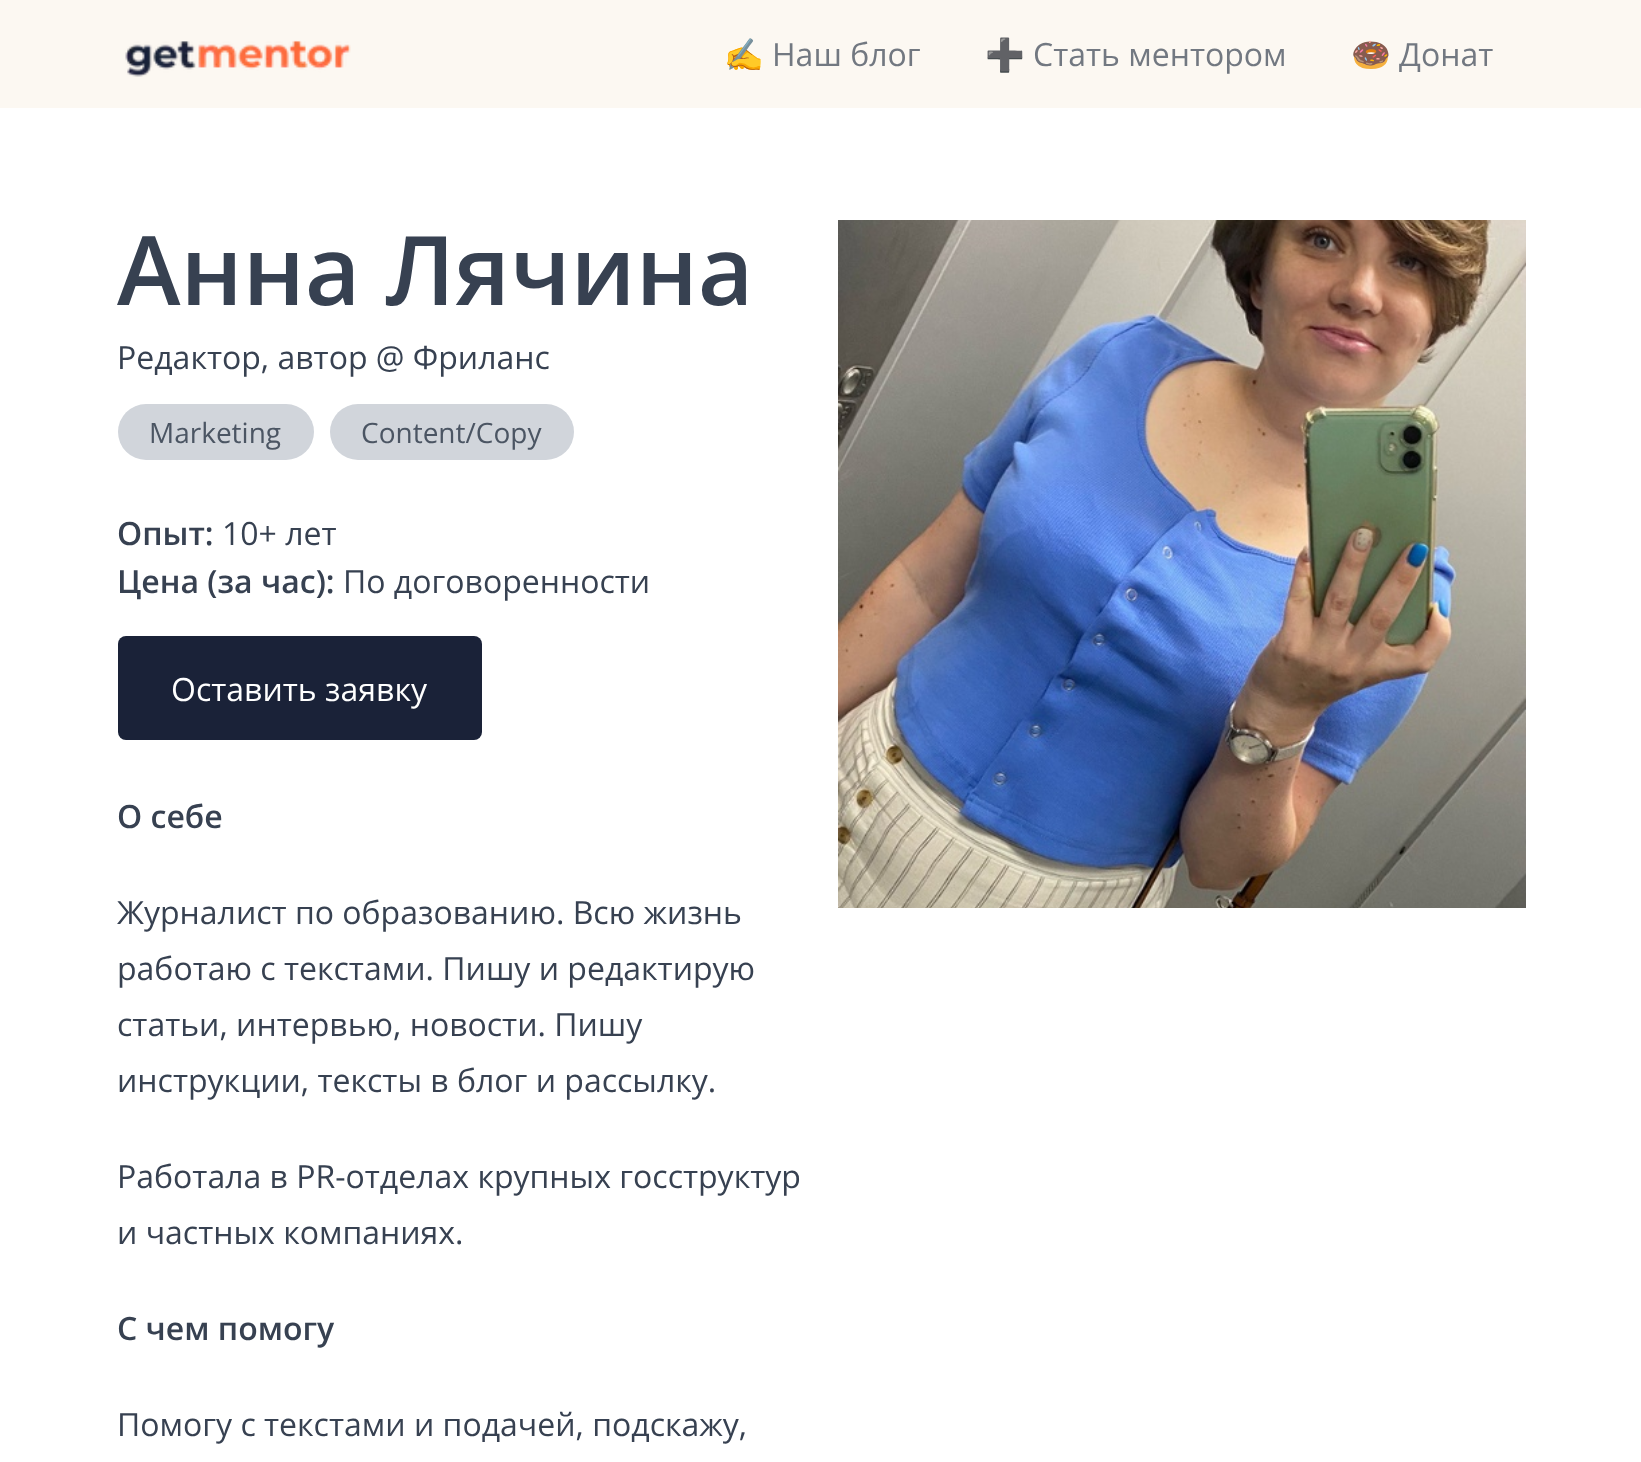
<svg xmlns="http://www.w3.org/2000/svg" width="1641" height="1462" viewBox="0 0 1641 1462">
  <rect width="100%" height="100%" fill="#ffffff"/>
  <rect x="0" y="0" width="1641" height="108" fill="#fcf8f2"/>
  <image x="125" y="40" width="226" height="37" href="img1.png"/>
  <text x="724" y="66" font-family="Noto Color Emoji" font-size="32" fill="#727881">✍️</text>
  <text x="772" y="66" font-family="Open Sans" font-size="32" fill="#727881">Наш блог</text>
  <text x="985" y="66" font-family="Noto Color Emoji" font-size="32" fill="#727881">➕</text>
  <text x="1033" y="66" font-family="Open Sans" font-size="32" fill="#727881">Стать ментором</text>
  <text x="1351" y="66" font-family="Noto Color Emoji" font-size="32" fill="#727881">🍩</text>
  <text x="1399" y="66" font-family="Open Sans" font-size="32" fill="#727881">Донат</text>
  <text x="117" y="305" font-family="Open Sans" font-size="96" font-weight="600" fill="#374151">Анна Лячина</text>
  <text x="117" y="369" font-family="Open Sans" font-size="32" fill="#374151">Редактор, автор @ Фриланс</text>
  <rect x="118" y="404" width="196" height="56" rx="28" fill="#d1d5db"/>
  <text x="149" y="443" font-family="Open Sans" font-size="28" fill="#4b5563">Marketing</text>
  <rect x="330" y="404" width="244" height="56" rx="28" fill="#d1d5db"/>
  <text x="361" y="443" font-family="Open Sans" font-size="28" fill="#4b5563">Content/Copy</text>
  <text x="117" y="545" font-family="Open Sans" font-size="32" font-weight="600" fill="#374151">Опыт:</text>
  <text x="222" y="545" font-family="Open Sans" font-size="32" fill="#374151">10+ лет</text>
  <text x="117" y="593" font-family="Open Sans" font-size="32" font-weight="600" fill="#374151">Цена (за час):</text>
  <text x="343" y="593" font-family="Open Sans" font-size="32" fill="#374151">По договоренности</text>
  <rect x="118" y="636" width="364" height="104" rx="8" fill="#1a2238"/>
  <text x="171" y="701" font-family="Open Sans" font-size="32" fill="#ffffff">Оставить заявку</text>
  <text x="117" y="828" font-family="Open Sans" font-size="32" font-weight="600" fill="#374151">О себе</text>
  <text x="117" y="924" font-family="Open Sans" font-size="32" fill="#374151">Журналист по образованию. Всю жизнь</text>
  <text x="117" y="980" font-family="Open Sans" font-size="32" fill="#374151">работаю с текстами. Пишу и редактирую</text>
  <text x="117" y="1036" font-family="Open Sans" font-size="32" fill="#374151">статьи, интервью, новости. Пишу</text>
  <text x="117" y="1092" font-family="Open Sans" font-size="32" fill="#374151">инструкции, тексты в блог и рассылку.</text>
  <text x="117" y="1188" font-family="Open Sans" font-size="32" fill="#374151">Работала в PR-отделах крупных госструктур</text>
  <text x="117" y="1244" font-family="Open Sans" font-size="32" fill="#374151">и частных компаниях.</text>
  <text x="117" y="1340" font-family="Open Sans" font-size="32" font-weight="600" fill="#374151">С чем помогу</text>
  <text x="117" y="1436" font-family="Open Sans" font-size="32" fill="#374151">Помогу с текстами и подачей, подскажу,</text>
  <image x="838" y="220" width="688" height="688" href="img2.png"/>
</svg>
